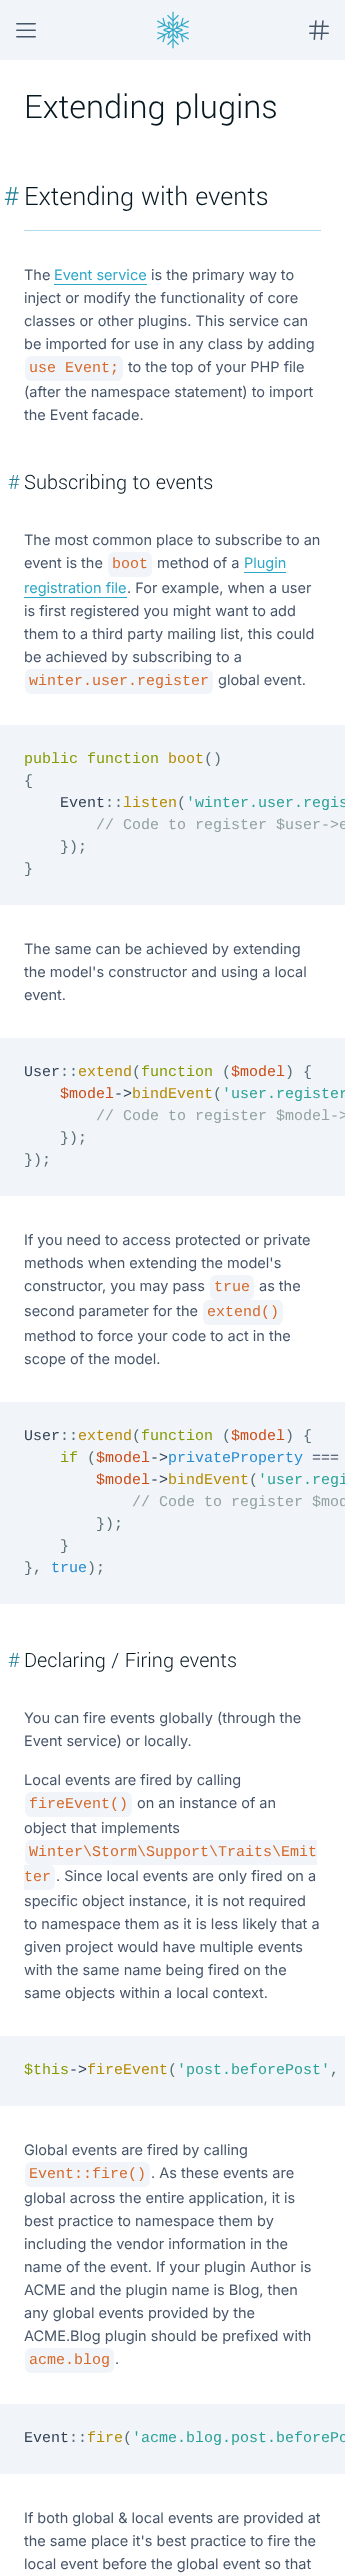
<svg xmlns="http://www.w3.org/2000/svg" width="345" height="2575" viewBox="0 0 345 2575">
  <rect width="100%" height="100%" fill="#ffffff"/>
  <rect x="0" y="0" width="345" height="60" fill="#f1f5f9"/>
  <image x="16" y="23" width="20" height="15" href="img1.png"/>
  <image x="157" y="11" width="32" height="38" href="img2.png"/>
  <image x="309" y="20" width="20" height="20" href="img3.png"/>
  <text x="24" y="118" font-family="Yantramanav" font-size="36" font-weight="300" fill="#081821">Extending plugins</text>
  <rect x="24" y="230" width="297" height="1" fill="#b1dbef"/>
  <text x="4" y="205" font-family="Yantramanav" font-size="28" font-weight="300" fill="#227f96">#</text>
  <text x="24" y="205" font-family="Yantramanav" font-size="28" font-weight="300" fill="#081821">Extending with events</text>
  <text x="24" y="280" font-family="Inter" font-size="14.5" fill="#475569">The</text>
  <text x="54" y="280" font-family="Inter" font-size="14.5" fill="#2da7c7">Event service</text>
  <rect x="54" y="284" width="93" height="1" fill="#2da7c7"/>
  <text x="151" y="280" font-family="Inter" font-size="14.5" fill="#475569">is the primary way to</text>
  <text x="24" y="303" font-family="Inter" font-size="14.5" fill="#475569">inject or modify the functionality of core</text>
  <text x="24" y="326" font-family="Inter" font-size="14.5" fill="#475569">classes or other plugins. This service can</text>
  <text x="24" y="349" font-family="Inter" font-size="14.5" fill="#475569">be imported for use in any class by adding</text>
  <rect x="25" y="356" width="98" height="25" rx="6" fill="#f1f5f9"/>
  <text x="29" y="372" font-family="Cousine" font-size="15" fill="#d66829">use Event;</text>
  <text x="128" y="372" font-family="Inter" font-size="14.5" fill="#475569">to the top of your PHP file</text>
  <text x="24" y="397" font-family="Inter" font-size="14.5" fill="#475569">(after the namespace statement) to import</text>
  <text x="24" y="420" font-family="Inter" font-size="14.5" fill="#475569">the Event facade.</text>
  <text x="8" y="489" font-family="Yantramanav" font-size="22" font-weight="300" fill="#227f96">#</text>
  <text x="24" y="489" font-family="Yantramanav" font-size="22" font-weight="300" fill="#081821">Subscribing to events</text>
  <text x="24" y="545" font-family="Inter" font-size="14.5" fill="#475569">The most common place to subscribe to an</text>
  <text x="24" y="568" font-family="Inter" font-size="14.5" fill="#475569">event is the</text>
  <rect x="108" y="552" width="44" height="25" rx="6" fill="#f1f5f9"/>
  <text x="112" y="568" font-family="Cousine" font-size="15" fill="#d66829">boot</text>
  <text x="157" y="568" font-family="Inter" font-size="14.5" fill="#475569">method of a</text>
  <text x="244" y="568" font-family="Inter" font-size="14.5" fill="#2da7c7">Plugin</text>
  <rect x="244" y="572" width="42" height="1" fill="#2da7c7"/>
  <text x="24" y="593" font-family="Inter" font-size="14.5" fill="#2da7c7">registration file</text>
  <rect x="24" y="597" width="103" height="1" fill="#2da7c7"/>
  <text x="127" y="593" font-family="Inter" font-size="14.5" fill="#475569">. For example, when a user</text>
  <text x="24" y="616" font-family="Inter" font-size="14.5" fill="#475569">is first registered you might want to add</text>
  <text x="24" y="639" font-family="Inter" font-size="14.5" fill="#475569">them to a third party mailing list, this could</text>
  <text x="24" y="662" font-family="Inter" font-size="14.5" fill="#475569">be achieved by subscribing to a</text>
  <rect x="25" y="669" width="188" height="25" rx="6" fill="#f1f5f9"/>
  <text x="29" y="685" font-family="Cousine" font-size="15" fill="#d66829">winter.user.register</text>
  <text x="218" y="685" font-family="Inter" font-size="14.5" fill="#475569">global event.</text>
  <rect x="0" y="725" width="345" height="180" fill="#f1f5f9"/>
  <text x="24" y="763" font-family="Cousine" font-size="15" fill="#859900">public function</text>
  <text x="168" y="763" font-family="Cousine" font-size="15" fill="#b58900">boot</text>
  <text x="204" y="763" font-family="Cousine" font-size="15" fill="#586e75">()</text>
  <text x="24" y="785" font-family="Cousine" font-size="15" fill="#586e75">{</text>
  <text x="60" y="807" font-family="Cousine" font-size="15" fill="#334155">Event</text>
  <text x="105" y="807" font-family="Cousine" font-size="15" fill="#586e75">::</text>
  <text x="123" y="807" font-family="Cousine" font-size="15" fill="#b58900">listen</text>
  <text x="177" y="807" font-family="Cousine" font-size="15" fill="#586e75">(</text>
  <text x="186" y="807" font-family="Cousine" font-size="15" fill="#2aa198">'winter.user.regis</text>
  <text x="96" y="829" font-family="Cousine" font-size="15" fill="#93a1a1">// Code to register $user-&gt;e</text>
  <text x="60" y="851" font-family="Cousine" font-size="15" fill="#586e75">});</text>
  <text x="24" y="873" font-family="Cousine" font-size="15" fill="#586e75">}</text>
  <text x="24" y="954" font-family="Inter" font-size="14.5" fill="#475569">The same can be achieved by extending</text>
  <text x="24" y="977" font-family="Inter" font-size="14.5" fill="#475569">the model's constructor and using a local</text>
  <text x="24" y="1000" font-family="Inter" font-size="14.5" fill="#475569">event.</text>
  <rect x="0" y="1038" width="345" height="158" fill="#f1f5f9"/>
  <text x="24" y="1076" font-family="Cousine" font-size="15" fill="#334155">User</text>
  <text x="60" y="1076" font-family="Cousine" font-size="15" fill="#586e75">::</text>
  <text x="78" y="1076" font-family="Cousine" font-size="15" fill="#b58900">extend</text>
  <text x="132" y="1076" font-family="Cousine" font-size="15" fill="#586e75">(</text>
  <text x="141" y="1076" font-family="Cousine" font-size="15" fill="#859900">function</text>
  <text x="222" y="1076" font-family="Cousine" font-size="15" fill="#586e75">(</text>
  <text x="231" y="1076" font-family="Cousine" font-size="15" fill="#cb4b16">$model</text>
  <text x="285" y="1076" font-family="Cousine" font-size="15" fill="#586e75">) {</text>
  <text x="60" y="1098" font-family="Cousine" font-size="15" fill="#cb4b16">$model</text>
  <text x="114" y="1098" font-family="Cousine" font-size="15" fill="#334155">-&gt;</text>
  <text x="132" y="1098" font-family="Cousine" font-size="15" fill="#b58900">bindEvent</text>
  <text x="213" y="1098" font-family="Cousine" font-size="15" fill="#586e75">(</text>
  <text x="222" y="1098" font-family="Cousine" font-size="15" fill="#2aa198">'user.register</text>
  <text x="96" y="1120" font-family="Cousine" font-size="15" fill="#93a1a1">// Code to register $model-&gt;</text>
  <text x="60" y="1142" font-family="Cousine" font-size="15" fill="#586e75">});</text>
  <text x="24" y="1164" font-family="Cousine" font-size="15" fill="#586e75">});</text>
  <text x="24" y="1245" font-family="Inter" font-size="14.5" fill="#475569">If you need to access protected or private</text>
  <text x="24" y="1268" font-family="Inter" font-size="14.5" fill="#475569">methods when extending the model's</text>
  <text x="24" y="1291" font-family="Inter" font-size="14.5" fill="#475569">constructor, you may pass</text>
  <rect x="210" y="1275" width="44" height="25" rx="6" fill="#f1f5f9"/>
  <text x="214" y="1291" font-family="Cousine" font-size="15" fill="#d66829">true</text>
  <text x="259" y="1291" font-family="Inter" font-size="14.5" fill="#475569">as the</text>
  <text x="24" y="1316" font-family="Inter" font-size="14.5" fill="#475569">second parameter for the</text>
  <rect x="203" y="1300" width="80" height="25" rx="6" fill="#f1f5f9"/>
  <text x="207" y="1316" font-family="Cousine" font-size="15" fill="#d66829">extend()</text>
  <text x="24" y="1341" font-family="Inter" font-size="14.5" fill="#475569">method to force your code to act in the</text>
  <text x="24" y="1364" font-family="Inter" font-size="14.5" fill="#475569">scope of the model.</text>
  <rect x="0" y="1402" width="345" height="202" fill="#f1f5f9"/>
  <text x="24" y="1440" font-family="Cousine" font-size="15" fill="#334155">User</text>
  <text x="60" y="1440" font-family="Cousine" font-size="15" fill="#586e75">::</text>
  <text x="78" y="1440" font-family="Cousine" font-size="15" fill="#b58900">extend</text>
  <text x="132" y="1440" font-family="Cousine" font-size="15" fill="#586e75">(</text>
  <text x="141" y="1440" font-family="Cousine" font-size="15" fill="#859900">function</text>
  <text x="222" y="1440" font-family="Cousine" font-size="15" fill="#586e75">(</text>
  <text x="231" y="1440" font-family="Cousine" font-size="15" fill="#cb4b16">$model</text>
  <text x="285" y="1440" font-family="Cousine" font-size="15" fill="#586e75">) {</text>
  <text x="60" y="1462" font-family="Cousine" font-size="15" fill="#859900">if</text>
  <text x="87" y="1462" font-family="Cousine" font-size="15" fill="#586e75">(</text>
  <text x="96" y="1462" font-family="Cousine" font-size="15" fill="#cb4b16">$model</text>
  <text x="150" y="1462" font-family="Cousine" font-size="15" fill="#334155">-&gt;</text>
  <text x="168" y="1462" font-family="Cousine" font-size="15" fill="#268bd2">privateProperty</text>
  <text x="312" y="1462" font-family="Cousine" font-size="15" fill="#334155">===</text>
  <text x="96" y="1484" font-family="Cousine" font-size="15" fill="#cb4b16">$model</text>
  <text x="150" y="1484" font-family="Cousine" font-size="15" fill="#334155">-&gt;</text>
  <text x="168" y="1484" font-family="Cousine" font-size="15" fill="#b58900">bindEvent</text>
  <text x="249" y="1484" font-family="Cousine" font-size="15" fill="#586e75">(</text>
  <text x="258" y="1484" font-family="Cousine" font-size="15" fill="#2aa198">'user.regi</text>
  <text x="132" y="1506" font-family="Cousine" font-size="15" fill="#93a1a1">// Code to register $mod</text>
  <text x="96" y="1528" font-family="Cousine" font-size="15" fill="#586e75">});</text>
  <text x="60" y="1550" font-family="Cousine" font-size="15" fill="#586e75">}</text>
  <text x="24" y="1572" font-family="Cousine" font-size="15" fill="#586e75">},</text>
  <text x="51" y="1572" font-family="Cousine" font-size="15" fill="#268bd2">true</text>
  <text x="87" y="1572" font-family="Cousine" font-size="15" fill="#586e75">);</text>
  <text x="8" y="1667" font-family="Yantramanav" font-size="22" font-weight="300" fill="#227f96">#</text>
  <text x="24" y="1667" font-family="Yantramanav" font-size="22" font-weight="300" fill="#081821">Declaring / Firing events</text>
  <text x="24" y="1723" font-family="Inter" font-size="14.5" fill="#475569">You can fire events globally (through the</text>
  <text x="24" y="1746" font-family="Inter" font-size="14.5" fill="#475569">Event service) or locally.</text>
  <text x="24" y="1785" font-family="Inter" font-size="14.5" fill="#475569">Local events are fired by calling</text>
  <rect x="25" y="1792" width="107" height="25" rx="6" fill="#f1f5f9"/>
  <text x="29" y="1808" font-family="Cousine" font-size="15" fill="#d66829">fireEvent()</text>
  <text x="137" y="1808" font-family="Inter" font-size="14.5" fill="#475569">on an instance of an</text>
  <text x="24" y="1833" font-family="Inter" font-size="14.5" fill="#475569">object that implements</text>
  <path d="M31 1840H317V1865H31C27.5 1865 25 1862.5 25 1859V1846C25 1842.5 27.5 1840 31 1840Z" fill="#f1f5f9"/>
  <text x="29" y="1856" font-family="Cousine" font-size="15" fill="#d66829">Winter\Storm\Support\Traits\Emit</text>
  <path d="M24 1865H49C52.5 1865 55 1867.5 55 1871V1884C55 1887.5 52.5 1890 49 1890H24Z" fill="#f1f5f9"/>
  <text x="24" y="1881" font-family="Cousine" font-size="15" fill="#d66829">ter</text>
  <text x="56" y="1881" font-family="Inter" font-size="14.5" fill="#475569">. Since local events are only fired on a</text>
  <text x="24" y="1906" font-family="Inter" font-size="14.5" fill="#475569">specific object instance, it is not required</text>
  <text x="24" y="1929" font-family="Inter" font-size="14.5" fill="#475569">to namespace them as it is less likely that a</text>
  <text x="24" y="1952" font-family="Inter" font-size="14.5" fill="#475569">given project would have multiple events</text>
  <text x="24" y="1975" font-family="Inter" font-size="14.5" fill="#475569">with the same name being fired on the</text>
  <text x="24" y="1998" font-family="Inter" font-size="14.5" fill="#475569">same objects within a local context.</text>
  <rect x="0" y="2036" width="345" height="70" fill="#f1f5f9"/>
  <text x="24" y="2074" font-family="Cousine" font-size="15" fill="#859900">$this</text>
  <text x="69" y="2074" font-family="Cousine" font-size="15" fill="#334155">-&gt;</text>
  <text x="87" y="2074" font-family="Cousine" font-size="15" fill="#b58900">fireEvent</text>
  <text x="168" y="2074" font-family="Cousine" font-size="15" fill="#586e75">(</text>
  <text x="177" y="2074" font-family="Cousine" font-size="15" fill="#2aa198">'post.beforePost'</text>
  <text x="330" y="2074" font-family="Cousine" font-size="15" fill="#586e75">,</text>
  <text x="24" y="2155" font-family="Inter" font-size="14.5" fill="#475569">Global events are fired by calling</text>
  <rect x="25" y="2162" width="125" height="25" rx="6" fill="#f1f5f9"/>
  <text x="29" y="2178" font-family="Cousine" font-size="15" fill="#d66829">Event::fire()</text>
  <text x="151" y="2178" font-family="Inter" font-size="14.5" fill="#475569">. As these events are</text>
  <text x="24" y="2203" font-family="Inter" font-size="14.5" fill="#475569">global across the entire application, it is</text>
  <text x="24" y="2226" font-family="Inter" font-size="14.5" fill="#475569">best practice to namespace them by</text>
  <text x="24" y="2249" font-family="Inter" font-size="14.5" fill="#475569">including the vendor information in the</text>
  <text x="24" y="2272" font-family="Inter" font-size="14.5" fill="#475569">name of the event. If your plugin Author is</text>
  <text x="24" y="2295" font-family="Inter" font-size="14.5" fill="#475569">ACME and the plugin name is Blog, then</text>
  <text x="24" y="2318" font-family="Inter" font-size="14.5" fill="#475569">any global events provided by the</text>
  <text x="24" y="2341" font-family="Inter" font-size="14.5" fill="#475569">ACME.Blog plugin should be prefixed with</text>
  <rect x="25" y="2348" width="89" height="25" rx="6" fill="#f1f5f9"/>
  <text x="29" y="2364" font-family="Cousine" font-size="15" fill="#d66829">acme.blog</text>
  <text x="115" y="2364" font-family="Inter" font-size="14.5" fill="#475569">.</text>
  <rect x="0" y="2404" width="345" height="70" fill="#f1f5f9"/>
  <text x="24" y="2442" font-family="Cousine" font-size="15" fill="#334155">Event</text>
  <text x="69" y="2442" font-family="Cousine" font-size="15" fill="#586e75">::</text>
  <text x="87" y="2442" font-family="Cousine" font-size="15" fill="#b58900">fire</text>
  <text x="123" y="2442" font-family="Cousine" font-size="15" fill="#586e75">(</text>
  <text x="132" y="2442" font-family="Cousine" font-size="15" fill="#2aa198">'acme.blog.post.beforePo</text>
  <text x="24" y="2523" font-family="Inter" font-size="14.5" fill="#475569">If both global &amp; local events are provided at</text>
  <text x="24" y="2546" font-family="Inter" font-size="14.5" fill="#475569">the same place it's best practice to fire the</text>
  <text x="24" y="2569" font-family="Inter" font-size="14.5" fill="#475569">local event before the global event so that</text>
</svg>
